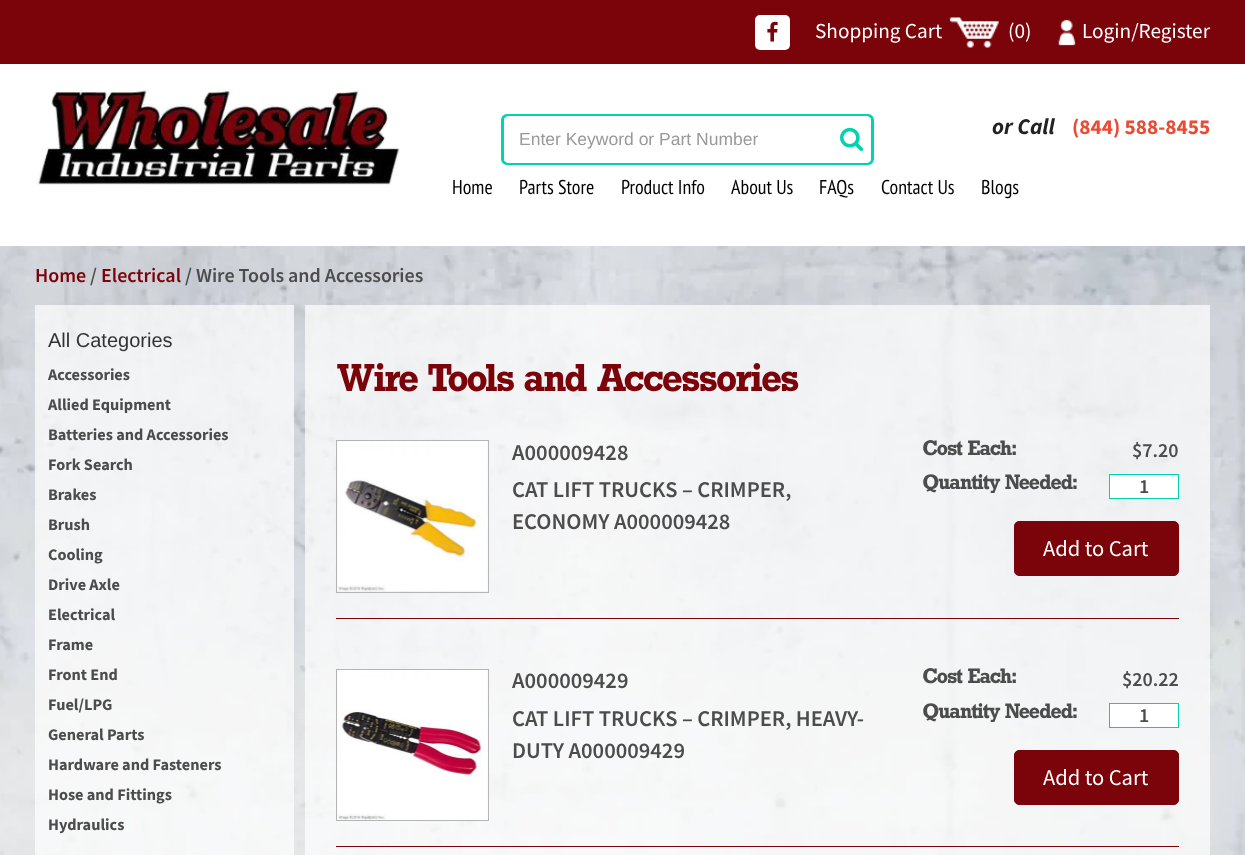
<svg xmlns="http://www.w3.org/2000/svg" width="1245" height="855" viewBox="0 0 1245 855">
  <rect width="100%" height="100%" fill="#ffffff"/>
  <image x="0" y="246" width="1245" height="609" href="img1.png"/>
  <rect x="0" y="0" width="1245" height="64" fill="#7a040a"/>
  <rect x="755" y="15" width="35" height="35" rx="5" fill="#ffffff"/>
  <image x="767" y="21" width="11" height="21" href="img2.png"/>
  <text x="815" y="38" font-family="Source Sans Pro" font-size="21.25" fill="#ffffff">Shopping Cart</text>
  <image x="949" y="17" width="50" height="31" href="img3.png"/>
  <text x="1008" y="38" font-family="Source Sans Pro" font-size="21.25" fill="#ffffff">(0)</text>
  <image x="1058" y="19" width="18" height="27" href="img4.png"/>
  <text x="1082" y="38" font-family="Source Sans Pro" font-size="21.25" fill="#ffffff">Login/Register</text>
  <image x="37" y="89" width="363" height="96" href="img5.png"/>
  <text x="992" y="134" font-family="Source Sans Pro" font-size="22.5" font-weight="bold" font-style="italic" fill="#222222">or Call</text>
  <text x="1072" y="134" font-family="Source Sans Pro" font-size="21.25" font-weight="bold" fill="#e94b35">(844) 588-8455</text>
  <rect x="502.5" y="115.5" width="370" height="48" rx="4.5" fill="none" stroke="#00d3af" stroke-width="3"/>
  <path d="M509 116H834V163H509C506 163 504 161 504 158V121C504 118 506 116 509 116Z" fill="#ffffff"/>
  <text x="519" y="145" font-family="Liberation Sans" font-size="17.5" fill="#999999">Enter Keyword or Part Number</text>
  <path d="M833 116H866C869 116 871 118 871 121V158C871 161 869 163 866 163H833Z" fill="#ffffff"/>
  <image x="840" y="127" width="24" height="25" href="img6.png"/>
  <text x="452" y="194" font-family="PT Sans Narrow" font-size="20" fill="#000000">Home</text>
  <text x="519" y="194" font-family="PT Sans Narrow" font-size="20" fill="#000000">Parts Store</text>
  <text x="621" y="194" font-family="PT Sans Narrow" font-size="20" fill="#000000">Product Info</text>
  <text x="731" y="194" font-family="PT Sans Narrow" font-size="20" fill="#000000">About Us</text>
  <text x="819" y="194" font-family="PT Sans Narrow" font-size="20" fill="#000000">FAQs</text>
  <text x="881" y="194" font-family="PT Sans Narrow" font-size="20" fill="#000000">Contact Us</text>
  <text x="981" y="194" font-family="PT Sans Narrow" font-size="20" fill="#000000">Blogs</text>
  <text x="35" y="282" font-family="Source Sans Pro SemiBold" font-size="20" font-weight="600" fill="#7a040a">Home</text>
  <text x="90" y="282" font-family="Source Sans Pro SemiBold" font-size="20" font-weight="600" fill="#4c4c4c">/</text>
  <text x="101" y="282" font-family="Source Sans Pro SemiBold" font-size="20" font-weight="600" fill="#7a040a">Electrical</text>
  <text x="185" y="282" font-family="Source Sans Pro SemiBold" font-size="20" font-weight="600" fill="#4c4c4c">/ Wire Tools and Accessories</text>
  <rect x="35" y="305" width="259" height="550" fill="#ffffff" fill-opacity="0.7"/>
  <text x="48" y="347" font-family="Liberation Sans" font-size="20" fill="#333333">All Categories</text>
  <text x="48" y="380" font-family="Source Sans Pro" font-size="16.25" font-weight="bold" fill="#4c4c4c">Accessories</text>
  <text x="48" y="410" font-family="Source Sans Pro" font-size="16.25" font-weight="bold" fill="#4c4c4c">Allied Equipment</text>
  <text x="48" y="440" font-family="Source Sans Pro" font-size="16.25" font-weight="bold" fill="#4c4c4c">Batteries and Accessories</text>
  <text x="48" y="470" font-family="Source Sans Pro" font-size="16.25" font-weight="bold" fill="#4c4c4c">Fork Search</text>
  <text x="48" y="500" font-family="Source Sans Pro" font-size="16.25" font-weight="bold" fill="#4c4c4c">Brakes</text>
  <text x="48" y="530" font-family="Source Sans Pro" font-size="16.25" font-weight="bold" fill="#4c4c4c">Brush</text>
  <text x="48" y="560" font-family="Source Sans Pro" font-size="16.25" font-weight="bold" fill="#4c4c4c">Cooling</text>
  <text x="48" y="590" font-family="Source Sans Pro" font-size="16.25" font-weight="bold" fill="#4c4c4c">Drive Axle</text>
  <text x="48" y="620" font-family="Source Sans Pro" font-size="16.25" font-weight="bold" fill="#4c4c4c">Electrical</text>
  <text x="48" y="650" font-family="Source Sans Pro" font-size="16.25" font-weight="bold" fill="#4c4c4c">Frame</text>
  <text x="48" y="680" font-family="Source Sans Pro" font-size="16.25" font-weight="bold" fill="#4c4c4c">Front End</text>
  <text x="48" y="710" font-family="Source Sans Pro" font-size="16.25" font-weight="bold" fill="#4c4c4c">Fuel/LPG</text>
  <text x="48" y="740" font-family="Source Sans Pro" font-size="16.25" font-weight="bold" fill="#4c4c4c">General Parts</text>
  <text x="48" y="770" font-family="Source Sans Pro" font-size="16.25" font-weight="bold" fill="#4c4c4c">Hardware and Fasteners</text>
  <text x="48" y="800" font-family="Source Sans Pro" font-size="16.25" font-weight="bold" fill="#4c4c4c">Hose and Fittings</text>
  <text x="48" y="830" font-family="Source Sans Pro" font-size="16.25" font-weight="bold" fill="#4c4c4c">Hydraulics</text>
  <rect x="305" y="305" width="905" height="550" fill="#ffffff" fill-opacity="0.7"/>
  <text x="337" y="391" font-family="Rockwell" font-size="37.5" font-weight="bold" fill="#7a040a">Wire Tools and Accessories</text>
  <rect x="336" y="618" width="843" height="1" fill="#7a040a"/>
  <rect x="336.5" y="440.5" width="152" height="152" fill="none" stroke="#b5b5b5"/>
  <image x="337" y="441" width="151" height="150" href="img7.png"/>
  <text x="512" y="460" font-family="Source Sans Pro SemiBold" font-size="22.5" font-weight="600" fill="#4c4c4c">A000009428</text>
  <text x="512" y="497" font-family="Source Sans Pro SemiBold" font-size="22.5" font-weight="600" fill="#4c4c4c">CAT LIFT TRUCKS – CRIMPER,</text>
  <text x="512" y="529" font-family="Source Sans Pro SemiBold" font-size="22.5" font-weight="600" fill="#4c4c4c">ECONOMY A000009428</text>
  <text x="923" y="455" font-family="Rockwell" font-size="20" font-weight="bold" fill="#4c4c4c">Cost Each:</text>
  <text x="1132" y="457" font-family="Source Sans Pro SemiBold" font-size="20" font-weight="600" fill="#4c4c4c">$7.20</text>
  <text x="923" y="489" font-family="Rockwell" font-size="20" font-weight="bold" fill="#4c4c4c">Quantity Needed:</text>
  <rect x="1109.5" y="474.5" width="69" height="24" fill="#ffffff" stroke="#00d3af"/>
  <text x="1139" y="493" font-family="Source Sans Pro SemiBold" font-size="20" font-weight="600" fill="#4c4c4c">1</text>
  <rect x="1014.5" y="521.5" width="164" height="54" rx="4.5" fill="#7a040a" stroke="#7a040a"/>
  <text x="1043" y="556" font-family="Source Sans Pro" font-size="22.5" fill="#ffffff">Add to Cart</text>
  <rect x="336" y="846" width="843" height="1" fill="#7a040a"/>
  <rect x="336.5" y="669.5" width="152" height="151" fill="none" stroke="#b5b5b5"/>
  <image x="337" y="670" width="151" height="150" href="img8.png"/>
  <text x="512" y="688" font-family="Source Sans Pro SemiBold" font-size="22.5" font-weight="600" fill="#4c4c4c">A000009429</text>
  <text x="512" y="726" font-family="Source Sans Pro SemiBold" font-size="22.5" font-weight="600" fill="#4c4c4c">CAT LIFT TRUCKS – CRIMPER, HEAVY-</text>
  <text x="512" y="758" font-family="Source Sans Pro SemiBold" font-size="22.5" font-weight="600" fill="#4c4c4c">DUTY A000009429</text>
  <text x="923" y="683" font-family="Rockwell" font-size="20" font-weight="bold" fill="#4c4c4c">Cost Each:</text>
  <text x="1122" y="686" font-family="Source Sans Pro SemiBold" font-size="20" font-weight="600" fill="#4c4c4c">$20.22</text>
  <text x="923" y="718" font-family="Rockwell" font-size="20" font-weight="bold" fill="#4c4c4c">Quantity Needed:</text>
  <rect x="1109.5" y="703.5" width="69" height="24" fill="#ffffff" stroke="#00d3af"/>
  <text x="1139" y="722" font-family="Source Sans Pro SemiBold" font-size="20" font-weight="600" fill="#4c4c4c">1</text>
  <rect x="1014.5" y="750.5" width="164" height="54" rx="4.5" fill="#7a040a" stroke="#7a040a"/>
  <text x="1043" y="785" font-family="Source Sans Pro" font-size="22.5" fill="#ffffff">Add to Cart</text>
</svg>
